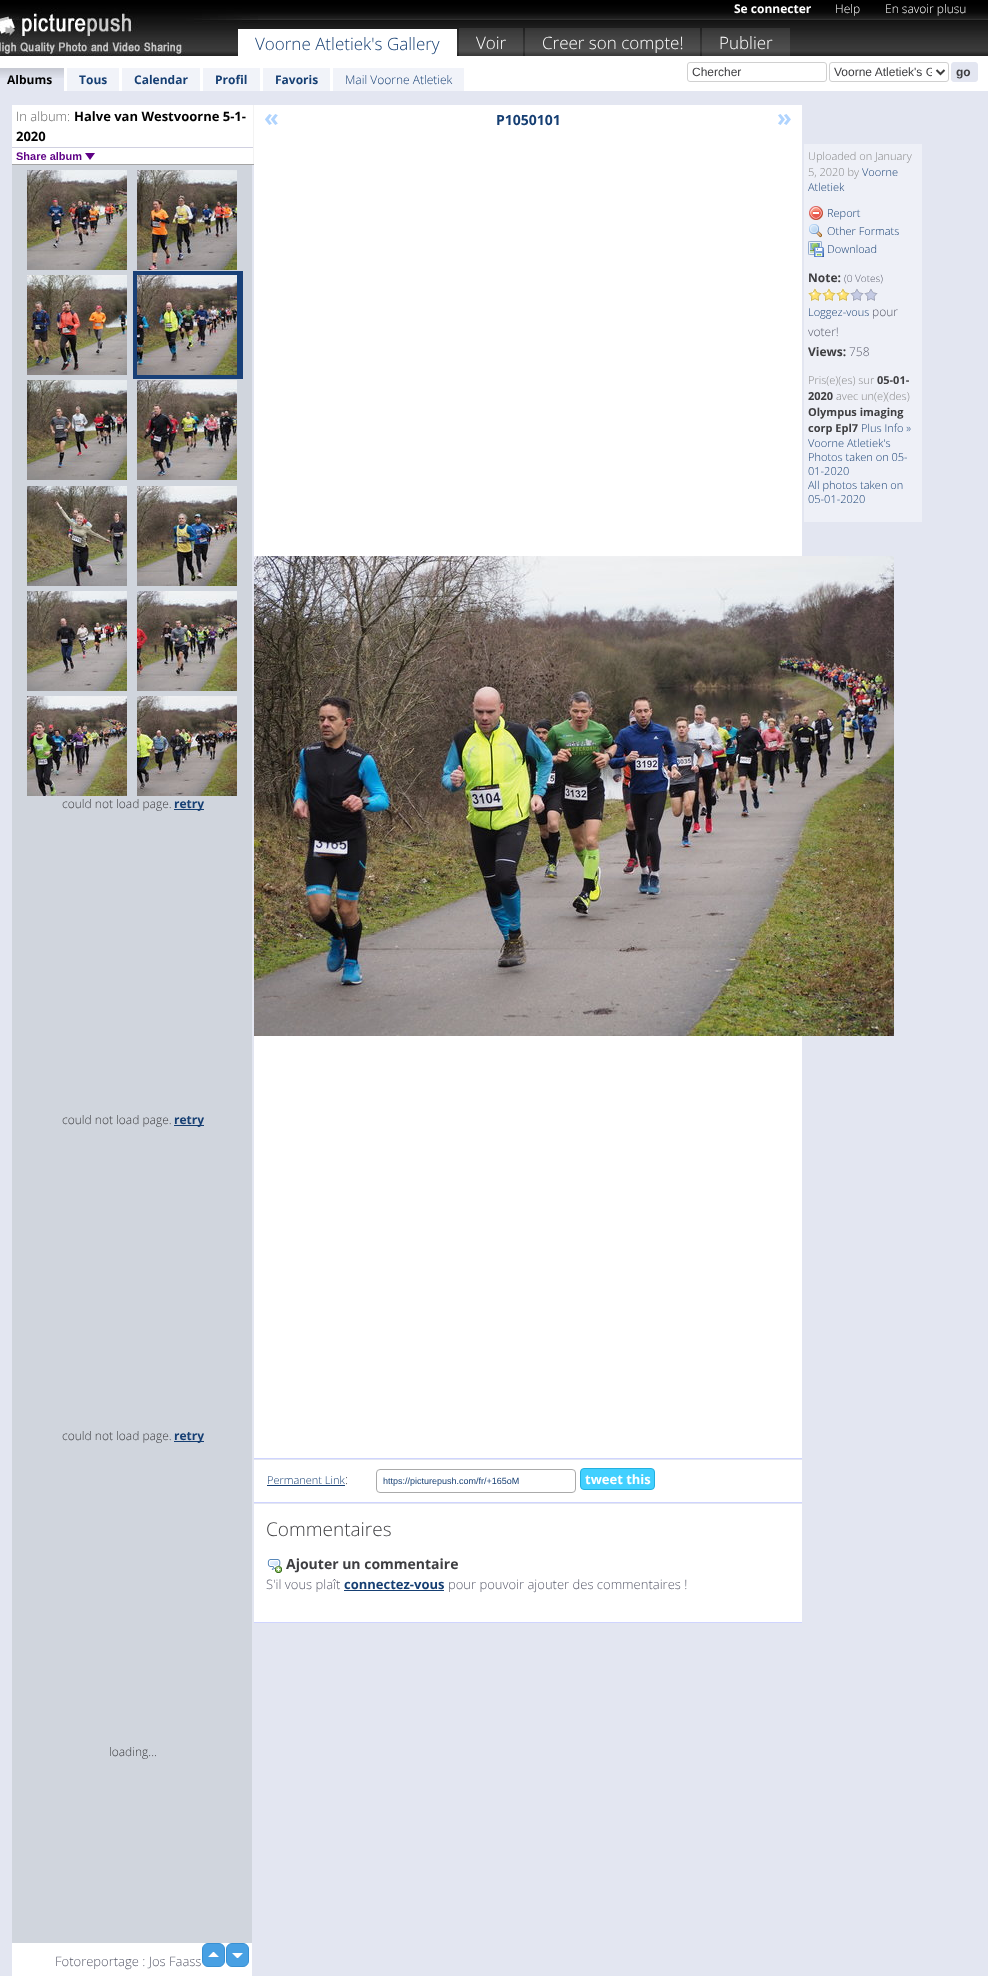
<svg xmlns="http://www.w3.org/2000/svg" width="988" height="1976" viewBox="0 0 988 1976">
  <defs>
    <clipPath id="clip1"><rect x="834" y="64" width="98" height="16"/></clipPath>
  </defs>
  <rect width="100%" height="100%" fill="#e3e6f1"/>
  <image x="0" y="0" width="988" height="56" href="img1.png"/>
  <image x="0" y="8" width="258" height="48" href="img2.png"/>
  <rect x="238" y="29" width="219" height="27" fill="#ffffff"/>
  <text x="255" y="50" font-family="Open Sans" font-size="17" font-weight="300" fill="#163f73">Voorne Atletiek's Gallery</text>
  <rect x="459" y="28" width="64" height="28" fill="#ffffff" fill-opacity="0.1"/>
  <text x="476" y="49" font-family="Open Sans" font-size="17" font-weight="300" fill="#ffffff">Voir</text>
  <rect x="525" y="28" width="175" height="28" fill="#ffffff" fill-opacity="0.1"/>
  <text x="542" y="49" font-family="Open Sans" font-size="17" font-weight="300" fill="#ffffff">Creer son compte!</text>
  <rect x="702" y="28" width="88" height="28" fill="#ffffff" fill-opacity="0.1"/>
  <text x="719" y="49" font-family="Open Sans" font-size="17" font-weight="300" fill="#ffffff">Publier</text>
  <text x="734" y="13" font-family="Open Sans" font-size="12" font-weight="bold" fill="#ffffff">Se connecter</text>
  <text x="835" y="13" font-family="Open Sans" font-size="12" font-weight="300" fill="#ffffff">Help</text>
  <text x="885" y="13" font-family="Open Sans" font-size="12" font-weight="300" fill="#ffffff">En savoir plusu</text>
  <rect x="0" y="56" width="988" height="35" fill="#ffffff"/>
  <rect x="0" y="68" width="64" height="23" fill="#e3e6f1"/>
  <image x="0" y="68" width="64" height="10" href="img3.png"/>
  <text x="7" y="84" font-family="Open Sans" font-size="12" font-weight="bold" fill="#000000">Albums</text>
  <rect x="67" y="68" width="52" height="23" fill="#f1f3f9"/>
  <text x="79" y="84" font-family="Open Sans" font-size="12" font-weight="bold" fill="#163f73">Tous</text>
  <rect x="122" y="68" width="78" height="23" fill="#f1f3f9"/>
  <text x="134" y="84" font-family="Open Sans" font-size="12" font-weight="bold" fill="#163f73">Calendar</text>
  <rect x="203" y="68" width="57" height="23" fill="#f1f3f9"/>
  <text x="215" y="84" font-family="Open Sans" font-size="12" font-weight="bold" fill="#163f73">Profil</text>
  <rect x="263" y="68" width="67" height="23" fill="#f1f3f9"/>
  <text x="275" y="84" font-family="Open Sans" font-size="12" font-weight="bold" fill="#163f73">Favoris</text>
  <rect x="333" y="68" width="131" height="23" fill="#f1f3f9"/>
  <text x="345" y="84" font-family="Open Sans" font-size="12" font-weight="300" fill="#163f73">Mail Voorne Atletiek</text>
  <rect x="687.5" y="62.5" width="139" height="19" rx="2.5" fill="none" stroke="#d0d0d0"/>
  <text x="692" y="76" font-family="Liberation Sans" font-size="12" fill="#3e3e41">Chercher</text>
  <rect x="829.5" y="62.5" width="119" height="19" rx="2.5" fill="none" stroke="#d0d0d0"/>
  <path d="M936.5 70L940.5 74L944.5 70" fill="none" stroke="#3e3e3e" stroke-width="2"/>
  <g clip-path="url(#clip1)">
    <text x="834" y="76" font-family="Liberation Sans" font-size="12" fill="#3e3e41">Voorne Atletiek's G</text>
  </g>
  <rect x="951.5" y="62.5" width="26" height="19" rx="2.5" fill="#e3e6f1" stroke="#e3e6f1"/>
  <text x="956" y="76" font-family="Liberation Sans" font-size="12" font-weight="bold" fill="#3e3e41">go</text>
  <rect x="12" y="105" width="241" height="59" fill="#ffffff"/>
  <rect x="253" y="105" width="1" height="60" fill="#f3f3f3"/>
  <rect x="12" y="164" width="242" height="1" fill="#a4a4a4"/>
  <text x="16" y="121" font-family="Open Sans" font-size="13" font-weight="300" fill="#666666">In album:</text>
  <text x="74" y="121" font-family="Open Sans" font-size="13" font-weight="bold" fill="#000000">Halve van Westvoorne 5-1-</text>
  <text x="16" y="141" font-family="Open Sans" font-size="13" font-weight="bold" fill="#000000">2020</text>
  <rect x="12" y="147" width="241" height="1" fill="#d0d0e0"/>
  <text x="16" y="160" font-family="Liberation Sans" font-size="11" font-weight="bold" fill="#5e0085">Share album</text>
  <path d="M85 153H95L90 160Z" fill="#5e0085"/>
  <rect x="12" y="165" width="240" height="1778" fill="#d0d5dd"/>
  <image x="27" y="170" width="100" height="100" href="img4.png"/>
  <image x="137" y="170" width="100" height="100" href="img5.png"/>
  <image x="27" y="275" width="100" height="100" href="img6.png"/>
  <rect x="133" y="271" width="110" height="108" fill="#194077"/>
  <image x="137" y="275" width="100" height="100" href="img7.png"/>
  <image x="27" y="380" width="100" height="100" href="img8.png"/>
  <image x="137" y="380" width="100" height="100" href="img9.png"/>
  <image x="27" y="486" width="100" height="100" href="img10.png"/>
  <image x="137" y="486" width="100" height="100" href="img11.png"/>
  <image x="27" y="591" width="100" height="100" href="img12.png"/>
  <image x="137" y="591" width="100" height="100" href="img13.png"/>
  <image x="27" y="696" width="100" height="100" href="img14.png"/>
  <image x="137" y="696" width="100" height="100" href="img15.png"/>
  <text x="62" y="808" font-family="Open Sans" font-size="12" font-weight="300" fill="#3e3e41">could not load page.</text>
  <rect x="174" y="809" width="30" height="1" fill="#163f73"/>
  <text x="174" y="808" font-family="Open Sans" font-size="12" font-weight="bold" fill="#163f73">retry</text>
  <text x="62" y="1124" font-family="Open Sans" font-size="12" font-weight="300" fill="#3e3e41">could not load page.</text>
  <rect x="174" y="1125" width="30" height="1" fill="#163f73"/>
  <text x="174" y="1124" font-family="Open Sans" font-size="12" font-weight="bold" fill="#163f73">retry</text>
  <text x="62" y="1440" font-family="Open Sans" font-size="12" font-weight="300" fill="#3e3e41">could not load page.</text>
  <rect x="174" y="1441" width="30" height="1" fill="#163f73"/>
  <text x="174" y="1440" font-family="Open Sans" font-size="12" font-weight="bold" fill="#163f73">retry</text>
  <text x="109" y="1756" font-family="Open Sans" font-size="12" font-weight="300" fill="#3e3e41">loading...</text>
  <rect x="12" y="1943" width="240" height="33" fill="#ffffff"/>
  <rect x="202.5" y="1943.5" width="22" height="23" rx="5.5" fill="#48a0e3" stroke="#3890d3"/>
  <rect x="226.5" y="1943.5" width="22" height="23" rx="5.5" fill="#48a0e3" stroke="#3890d3"/>
  <path d="M219 1957H208L213 1952H214ZM232 1953H243L238 1958H237Z" fill="#ffffff"/>
  <text x="55" y="1966" font-family="Open Sans" font-size="13" font-weight="300" fill="#5a5c6c">Fotoreportage : Jos Faass</text>
  <rect x="254" y="105" width="548" height="1353" fill="#ffffff"/>
  <rect x="254" y="1458" width="548" height="1" fill="#cfd4ff"/>
  <text x="264" y="126" font-family="Open Sans" font-size="24" font-weight="bold" fill="#b0d4fe">«</text>
  <text x="496" y="125" font-family="Open Sans" font-size="14" font-weight="bold" fill="#163f73">P1050101</text>
  <text x="777" y="126" font-family="Open Sans" font-size="24" font-weight="bold" fill="#b0d4fe">»</text>
  <rect x="804" y="144" width="118" height="378" fill="#eef0f7"/>
  <text x="808" y="160" font-family="Open Sans" font-size="11" font-weight="300" fill="#888888">Uploaded on January</text>
  <text x="808" y="176" font-family="Open Sans" font-size="11" font-weight="300" fill="#888888">5, 2020 by</text>
  <text x="862" y="176" font-family="Open Sans" font-size="11" font-weight="300" fill="#163f73">Voorne</text>
  <text x="808" y="191" font-family="Open Sans" font-size="11" font-weight="300" fill="#163f73">Atletiek</text>
  <image x="809" y="206" width="14" height="14" href="img16.png"/>
  <text x="827" y="217" font-family="Open Sans" font-size="11" font-weight="300" fill="#163f73">Report</text>
  <image x="809" y="224" width="13" height="14" href="img17.png"/>
  <text x="827" y="235" font-family="Open Sans" font-size="11" font-weight="300" fill="#163f73">Other Formats</text>
  <image x="808" y="241" width="16" height="16" href="img18.png"/>
  <text x="827" y="253" font-family="Open Sans" font-size="11" font-weight="300" fill="#163f73">Download</text>
  <text x="808" y="282" font-family="Open Sans" font-size="12" font-weight="bold" fill="#3e3e41">Note:</text>
  <text x="844" y="282" font-family="Open Sans" font-size="10" font-weight="300" fill="#5a5c6c">(0 Votes)</text>
  <image x="808" y="288" width="14" height="13" href="img19.png"/>
  <image x="822" y="288" width="14" height="13" href="img19.png"/>
  <image x="836" y="288" width="14" height="13" href="img19.png"/>
  <image x="850" y="288" width="14" height="13" href="img20.png"/>
  <image x="864" y="288" width="14" height="13" href="img20.png"/>
  <text x="808" y="316" font-family="Open Sans" font-size="11" font-weight="300" fill="#163f73">Loggez-vous</text>
  <text x="872" y="316" font-family="Open Sans" font-size="12" font-weight="300" fill="#5a5c6c">pour</text>
  <text x="808" y="336" font-family="Open Sans" font-size="12" font-weight="300" fill="#5a5c6c">voter!</text>
  <text x="808" y="356" font-family="Open Sans" font-size="12" font-weight="bold" fill="#3e3e41">Views:</text>
  <text x="849" y="356" font-family="Open Sans" font-size="12" font-weight="300" fill="#5a5c6c">758</text>
  <text x="808" y="384" font-family="Open Sans" font-size="11" font-weight="300" fill="#888888">Pris(e)(es) sur</text>
  <text x="877" y="384" font-family="Open Sans" font-size="11" font-weight="bold" fill="#3e3e41">05-01-</text>
  <text x="808" y="400" font-family="Open Sans" font-size="11" font-weight="bold" fill="#3e3e41">2020</text>
  <text x="836" y="400" font-family="Open Sans" font-size="11" font-weight="300" fill="#888888">avec un(e)(des)</text>
  <text x="808" y="416" font-family="Open Sans" font-size="11" font-weight="bold" fill="#3e3e41">Olympus imaging</text>
  <text x="808" y="432" font-family="Open Sans" font-size="11" font-weight="bold" fill="#3e3e41">corp Epl7</text>
  <text x="861" y="432" font-family="Open Sans" font-size="11" font-weight="300" fill="#163f73">Plus Info »</text>
  <text x="808" y="447" font-family="Open Sans" font-size="11" font-weight="300" fill="#163f73">Voorne Atletiek's</text>
  <text x="808" y="461" font-family="Open Sans" font-size="11" font-weight="300" fill="#163f73">Photos taken on 05-</text>
  <text x="808" y="475" font-family="Open Sans" font-size="11" font-weight="300" fill="#163f73">01-2020</text>
  <text x="808" y="489" font-family="Open Sans" font-size="11" font-weight="300" fill="#163f73">All photos taken on</text>
  <text x="808" y="503" font-family="Open Sans" font-size="11" font-weight="300" fill="#163f73">05-01-2020</text>
  <image x="254" y="556" width="640" height="480" href="img21.png"/>
  <rect x="254" y="1460" width="548" height="42" fill="#ffffff"/>
  <rect x="254" y="1502" width="548" height="1" fill="#cfd4ff"/>
  <text x="267" y="1484" font-family="Open Sans" font-size="11" font-weight="300" fill="#163f73">Permanent Link</text>
  <rect x="267" y="1485" width="78" height="1" fill="#163f73"/>
  <text x="345" y="1484" font-family="Open Sans" font-size="13" font-weight="300" fill="#3e3e41">:</text>
  <rect x="376.5" y="1469.5" width="199" height="23" rx="3.5" fill="none" stroke="#aaaaaa"/>
  <text x="383" y="1484" font-family="Liberation Sans" font-size="9" fill="#163f73">https://picturepush.com/fr/+165oM</text>
  <rect x="580.5" y="1468.5" width="74" height="21" rx="3.5" fill="#42d0ff" stroke="#22b0df"/>
  <text x="585" y="1484" font-family="Open Sans" font-size="13" font-weight="bold" fill="#ffffff">tweet this</text>
  <rect x="254" y="1504" width="548" height="118" fill="#ffffff"/>
  <rect x="254" y="1622" width="548" height="1" fill="#cfd4ff"/>
  <text x="266" y="1536" font-family="Open Sans" font-size="19" font-weight="300" fill="#3e3e41">Commentaires</text>
  <image x="267" y="1559" width="15" height="14" href="img22.png"/>
  <text x="286" y="1569" font-family="Open Sans" font-size="14" font-weight="bold" fill="#3e3e41">Ajouter un commentaire</text>
  <text x="266" y="1589" font-family="Open Sans" font-size="13" font-weight="300" fill="#5a5c6c">S'il vous plaît</text>
  <text x="344" y="1589" font-family="Open Sans" font-size="13" font-weight="bold" fill="#163f73">connectez-vous</text>
  <rect x="344" y="1590" width="100" height="1" fill="#163f73"/>
  <text x="448" y="1589" font-family="Open Sans" font-size="13" font-weight="300" fill="#5a5c6c">pour pouvoir ajouter des commentaires !</text>
</svg>
